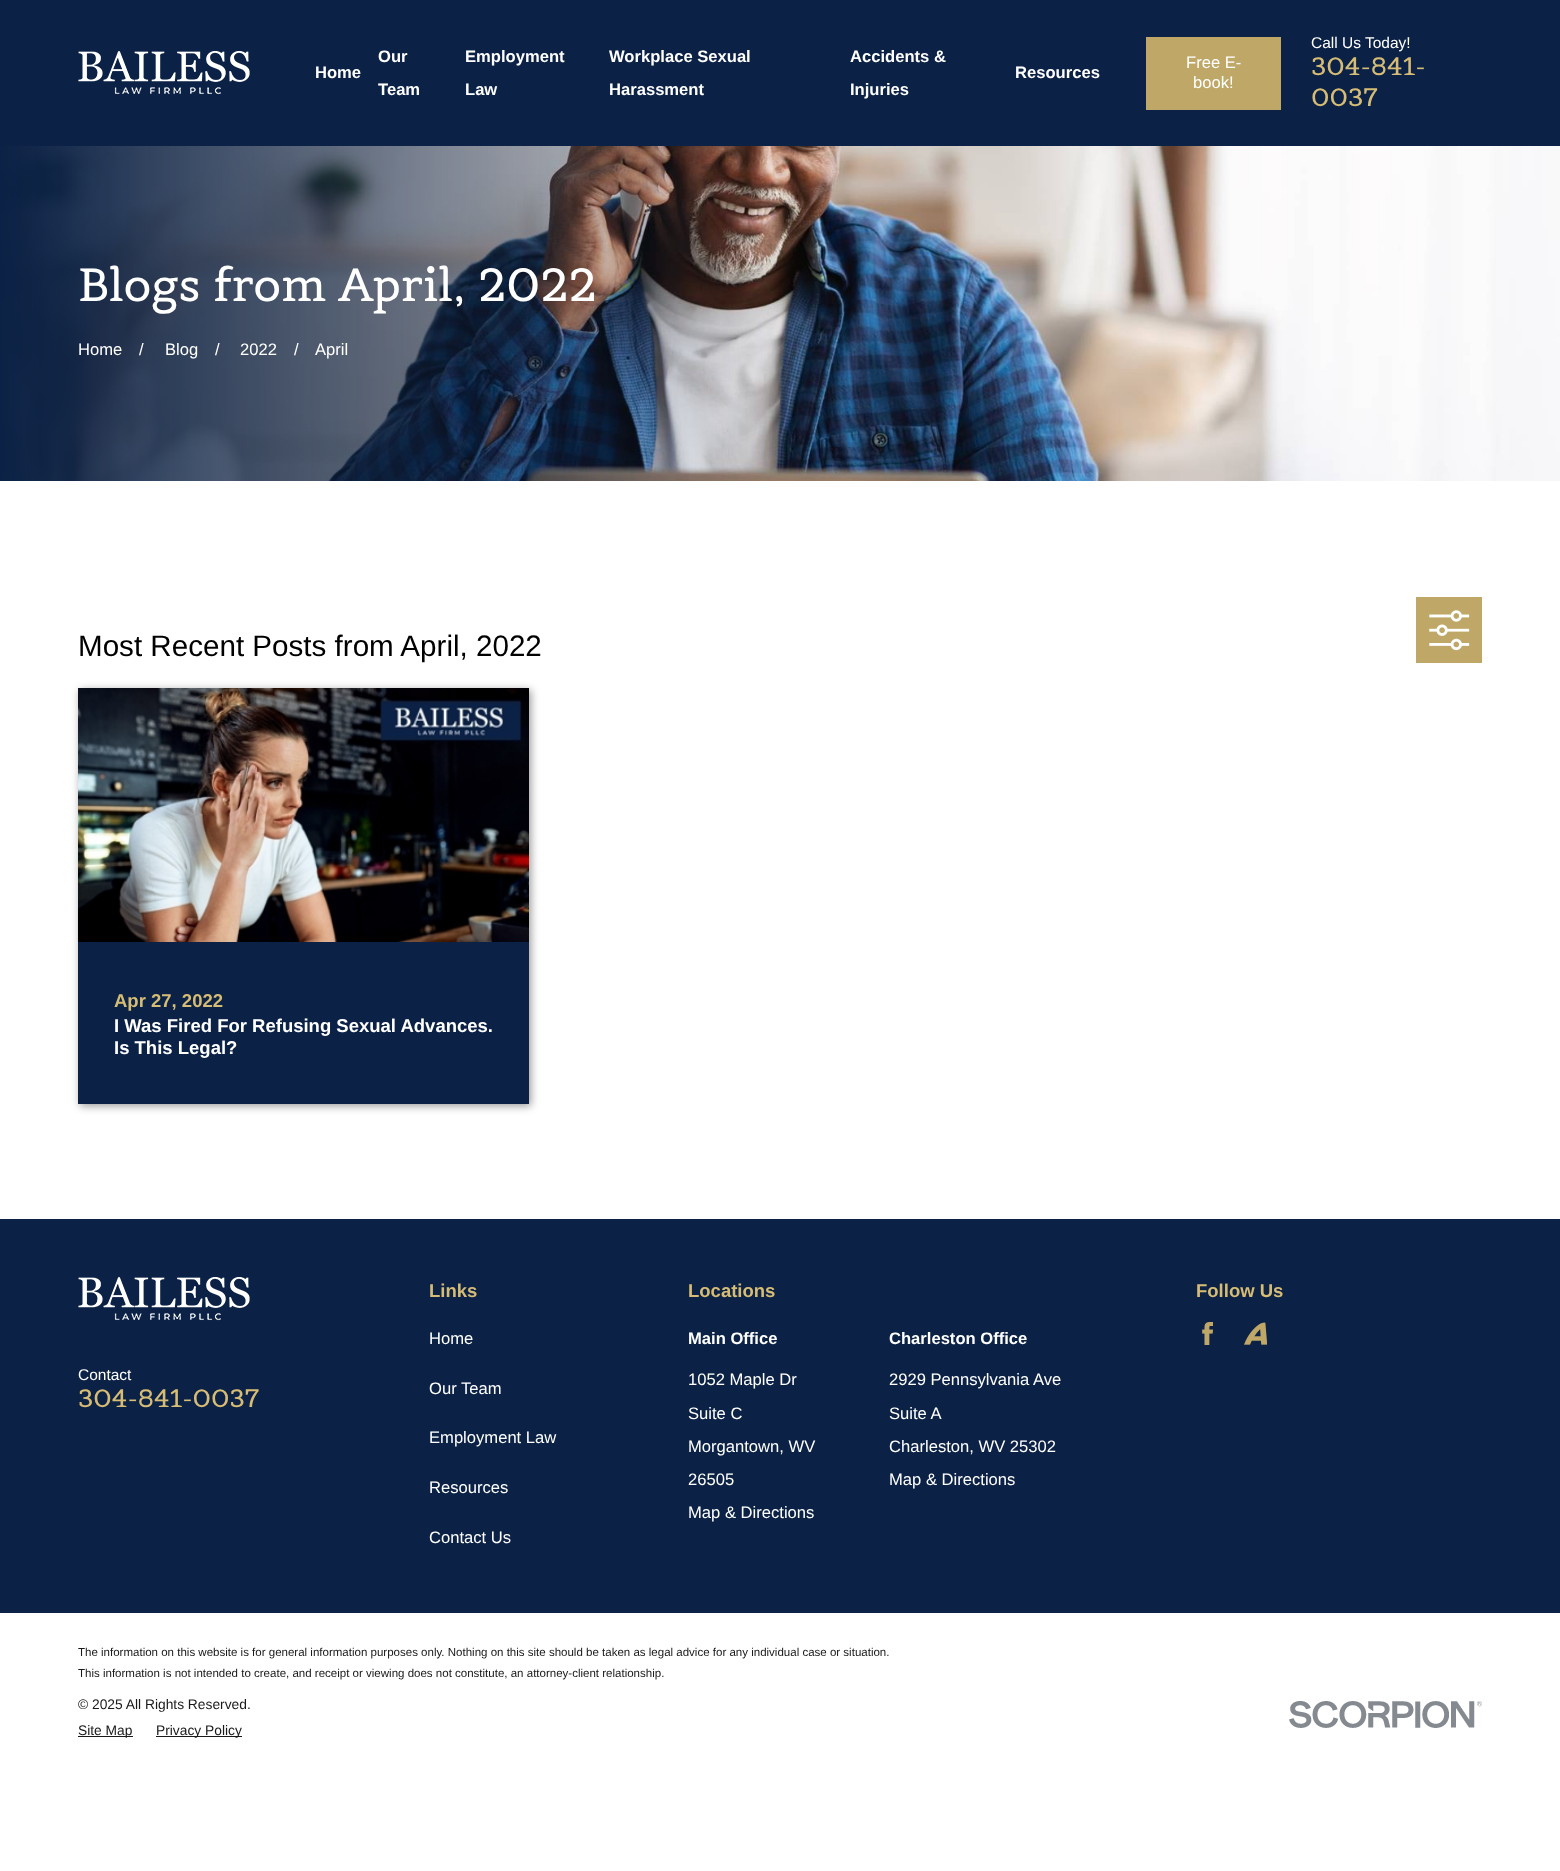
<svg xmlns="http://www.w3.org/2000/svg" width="1560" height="1871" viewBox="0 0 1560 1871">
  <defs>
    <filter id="blur1" x="-50%" y="-200%" width="200%" height="500%"><feGaussianBlur stdDeviation="4"/></filter>
  </defs>
  <rect width="100%" height="100%" fill="#ffffff"/>
  <rect x="0" y="0" width="1560" height="146" fill="#0b2246"/>
  <image x="78" y="51" width="172" height="44" href="img1.png"/>
  <text x="315" y="78" font-family="Arimo" font-size="16.6" font-weight="bold" fill="#ffffff">Home</text>
  <text x="378" y="62" font-family="Arimo" font-size="16.6" font-weight="bold" fill="#ffffff">Our</text>
  <text x="378" y="95" font-family="Arimo" font-size="16.6" font-weight="bold" fill="#ffffff">Team</text>
  <text x="465" y="62" font-family="Arimo" font-size="16.6" font-weight="bold" fill="#ffffff">Employment</text>
  <text x="465" y="95" font-family="Arimo" font-size="16.6" font-weight="bold" fill="#ffffff">Law</text>
  <text x="609" y="62" font-family="Arimo" font-size="16.6" font-weight="bold" fill="#ffffff">Workplace Sexual</text>
  <text x="609" y="95" font-family="Arimo" font-size="16.6" font-weight="bold" fill="#ffffff">Harassment</text>
  <text x="850" y="62" font-family="Arimo" font-size="16.6" font-weight="bold" fill="#ffffff">Accidents &amp;</text>
  <text x="850" y="95" font-family="Arimo" font-size="16.6" font-weight="bold" fill="#ffffff">Injuries</text>
  <text x="1015" y="78" font-family="Arimo" font-size="16.6" font-weight="bold" fill="#ffffff">Resources</text>
  <rect x="1146" y="37" width="135" height="73" fill="#bfa767"/>
  <text x="1186" y="68" font-family="Arimo" font-size="16.6" fill="#ffffff">Free E-</text>
  <text x="1193" y="88" font-family="Arimo" font-size="16.6" fill="#ffffff">book!</text>
  <text x="1311" y="48" font-family="Arimo" font-size="15.5" fill="#ffffff">Call Us Today!</text>
  <text x="1311" y="75" font-family="Belgrano" font-size="25" fill="#d6bc75">304-841-</text>
  <text x="1311" y="106" font-family="Belgrano" font-size="25" fill="#d6bc75">0037</text>
  <image x="0" y="146" width="1560" height="335" href="img2.png"/>
  <text x="78" y="301" font-family="Belgrano" font-size="46" fill="#ffffff">Blogs from April, 2022</text>
  <text x="78" y="355" font-family="Arimo" font-size="16.6" fill="#ffffff">Home</text>
  <text x="139" y="355" font-family="Arimo" font-size="16.6" fill="#ffffff">/</text>
  <text x="165" y="355" font-family="Arimo" font-size="16.6" fill="#ffffff">Blog</text>
  <text x="215" y="355" font-family="Arimo" font-size="16.6" fill="#ffffff">/</text>
  <text x="240" y="355" font-family="Arimo" font-size="16.6" fill="#ffffff">2022</text>
  <text x="294" y="355" font-family="Arimo" font-size="16.6" fill="#ffffff">/</text>
  <text x="315" y="355" font-family="Arimo" font-size="16.6" fill="#ffffff">April</text>
  <text x="78" y="656" font-family="Arimo" font-size="29.6" fill="#000000">Most Recent Posts from April, 2022</text>
  <rect x="1416" y="597" width="66" height="66" fill="#bfa767"/>
  <image x="1429" y="610" width="41" height="41" href="img3.png"/>
  <rect x="80" y="690" width="451" height="416" fill="#000000" fill-opacity="0.4" filter="url(#blur1)"/>
  <image x="78" y="688" width="451" height="254" href="img4.png"/>
  <rect x="78" y="942" width="451" height="162" fill="#0b2246"/>
  <text x="114" y="1007" font-family="Arimo" font-size="18.5" font-weight="bold" fill="#d6bc75">Apr 27, 2022</text>
  <text x="114" y="1032" font-family="Arimo" font-size="18.5" font-weight="bold" fill="#ffffff">I Was Fired For Refusing Sexual Advances.</text>
  <text x="114" y="1054" font-family="Arimo" font-size="18.5" font-weight="bold" fill="#ffffff">Is This Legal?</text>
  <rect x="0" y="1219" width="1560" height="394" fill="#0b2246"/>
  <image x="78" y="1277" width="172" height="44" href="img1.png"/>
  <text x="78" y="1380" font-family="Arimo" font-size="15.5" fill="#ffffff">Contact</text>
  <text x="78" y="1407" font-family="Belgrano" font-size="25" fill="#d6bc75">304-841-0037</text>
  <text x="429" y="1297" font-family="Arimo" font-size="18.5" font-weight="bold" fill="#d6bc75">Links</text>
  <text x="429" y="1344" font-family="Arimo" font-size="16.6" fill="#ffffff">Home</text>
  <text x="429" y="1394" font-family="Arimo" font-size="16.6" fill="#ffffff">Our Team</text>
  <text x="429" y="1443" font-family="Arimo" font-size="16.6" fill="#ffffff">Employment Law</text>
  <text x="429" y="1493" font-family="Arimo" font-size="16.6" fill="#ffffff">Resources</text>
  <text x="429" y="1543" font-family="Arimo" font-size="16.6" fill="#ffffff">Contact Us</text>
  <text x="688" y="1297" font-family="Arimo" font-size="18.5" font-weight="bold" fill="#d6bc75">Locations</text>
  <text x="688" y="1344" font-family="Arimo" font-size="16.6" font-weight="bold" fill="#ffffff">Main Office</text>
  <text x="688" y="1385" font-family="Arimo" font-size="16.6" fill="#ffffff">1052 Maple Dr</text>
  <text x="688" y="1419" font-family="Arimo" font-size="16.6" fill="#ffffff">Suite C</text>
  <text x="688" y="1452" font-family="Arimo" font-size="16.6" fill="#ffffff">Morgantown, WV</text>
  <text x="688" y="1485" font-family="Arimo" font-size="16.6" fill="#ffffff">26505</text>
  <text x="688" y="1518" font-family="Arimo" font-size="16.6" fill="#ffffff">Map &amp; Directions</text>
  <text x="889" y="1344" font-family="Arimo" font-size="16.6" font-weight="bold" fill="#ffffff">Charleston Office</text>
  <text x="889" y="1385" font-family="Arimo" font-size="16.6" fill="#ffffff">2929 Pennsylvania Ave</text>
  <text x="889" y="1419" font-family="Arimo" font-size="16.6" fill="#ffffff">Suite A</text>
  <text x="889" y="1452" font-family="Arimo" font-size="16.6" fill="#ffffff">Charleston, WV 25302</text>
  <text x="889" y="1485" font-family="Arimo" font-size="16.6" fill="#ffffff">Map &amp; Directions</text>
  <text x="1196" y="1297" font-family="Arimo" font-size="18.5" font-weight="bold" fill="#d6bc75">Follow Us</text>
  <image x="1202" y="1322" width="11" height="23" href="img5.png"/>
  <image x="1244" y="1322" width="23" height="23" href="img6.png"/>
  <text x="78" y="1656" font-family="Arimo" font-size="11.53" fill="#191919">The information on this website is for general information purposes only. Nothing on this site should be taken as legal advice for any individual case or situation.</text>
  <text x="78" y="1677" font-family="Arimo" font-size="11.53" fill="#191919">This information is not intended to create, and receipt or viewing does not constitute, an attorney-client relationship.</text>
  <text x="78" y="1709" font-family="Arimo" font-size="13.8" fill="#191919">© 2025 All Rights Reserved.</text>
  <rect x="78" y="1736" width="55" height="1" fill="#191919"/>
  <text x="78" y="1735" font-family="Arimo" font-size="13.8" fill="#191919">Site Map</text>
  <rect x="156" y="1736" width="86" height="1" fill="#191919"/>
  <text x="156" y="1735" font-family="Arimo" font-size="13.8" fill="#191919">Privacy Policy</text>
  <image x="1289" y="1701" width="193" height="27" href="img7.png"/>
</svg>
